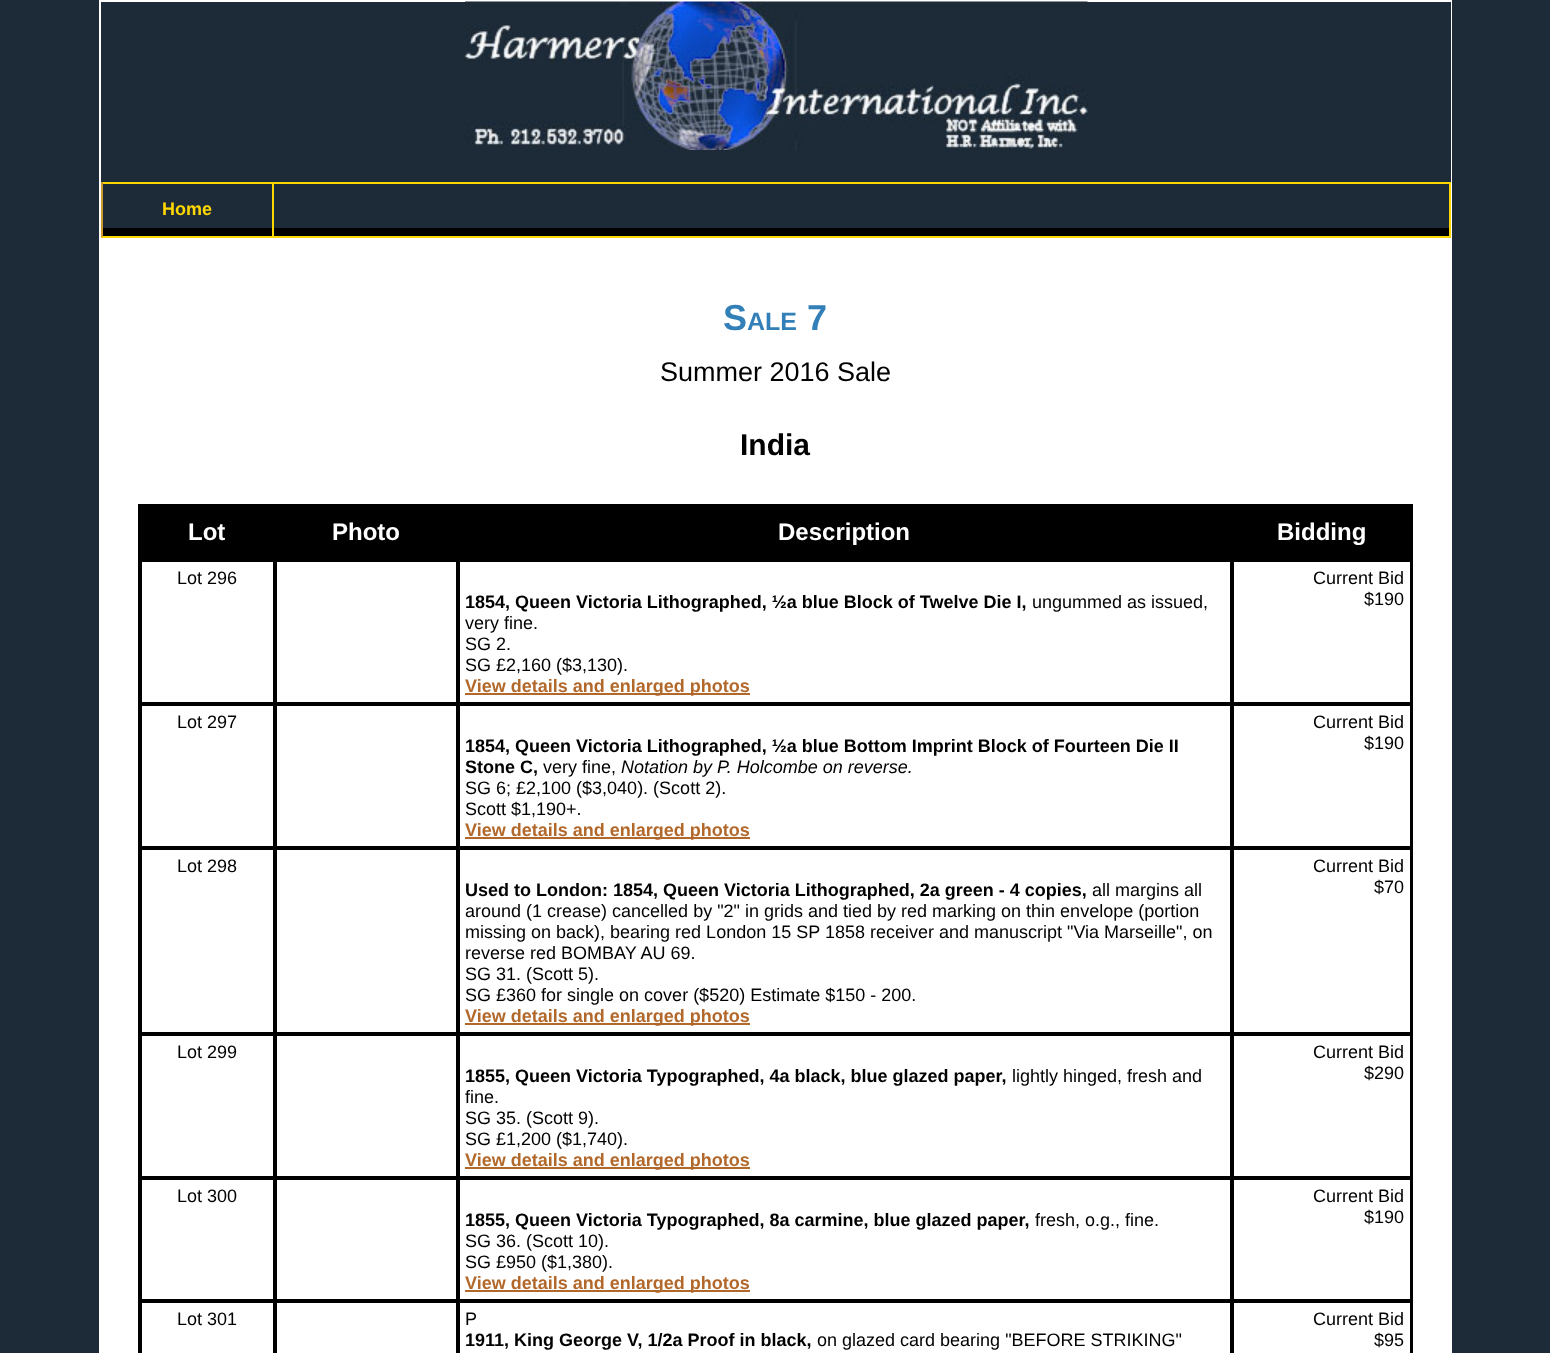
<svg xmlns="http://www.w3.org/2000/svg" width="1550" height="1353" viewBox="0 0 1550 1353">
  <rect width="100%" height="100%" fill="#1d2b38"/>
  <rect x="99" y="0" width="1353" height="1353" fill="#ffffff"/>
  <rect x="101" y="2" width="1350" height="180" fill="#1d2b38"/>
  <image x="465" y="1" width="623" height="149" href="img1.png"/>
  <rect x="101" y="182" width="1350" height="2" fill="#ffd700"/>
  <rect x="1449" y="182" width="2" height="55" fill="#ffd700"/>
  <rect x="101" y="236" width="1350" height="2" fill="#ffd700"/>
  <rect x="103" y="228" width="1346" height="8" fill="#000000"/>
  <rect x="101" y="182" width="2" height="55" fill="#cc9933"/>
  <rect x="103" y="184" width="1346" height="44" fill="#1d2b38"/>
  <rect x="272" y="183" width="2" height="53" fill="#ffd700"/>
  <text x="162" y="215" font-family="Liberation Sans" font-size="18" font-weight="bold" fill="#ffd700">Home</text>
  <text x="723" y="330" font-family="Liberation Sans" font-size="36" font-weight="bold" fill="#3380b8">S</text>
  <text x="747" y="330" font-family="Liberation Sans" font-size="25" font-weight="bold" fill="#3380b8">ALE</text>
  <text x="807" y="330" font-family="Liberation Sans" font-size="36" font-weight="bold" fill="#3380b8">7</text>
  <text x="660" y="381" font-family="Liberation Sans" font-size="27" fill="#000000">Summer 2016 Sale</text>
  <text x="740" y="455" font-family="Liberation Sans" font-size="30" font-weight="bold" fill="#000000">India</text>
  <rect x="139" y="505" width="1273" height="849" fill="none" stroke="#000000" stroke-width="2"/>
  <rect x="140" y="506" width="1271" height="54" fill="#000000"/>
  <text x="188" y="540" font-family="Liberation Sans" font-size="24" font-weight="bold" fill="#ffffff">Lot</text>
  <text x="332" y="540" font-family="Liberation Sans" font-size="24" font-weight="bold" fill="#ffffff">Photo</text>
  <text x="778" y="540" font-family="Liberation Sans" font-size="24" font-weight="bold" fill="#ffffff">Description</text>
  <text x="1277" y="540" font-family="Liberation Sans" font-size="24" font-weight="bold" fill="#ffffff">Bidding</text>
  <rect x="141" y="561" width="133" height="142" fill="none" stroke="#000000" stroke-width="2"/>
  <text x="177" y="584" font-family="Liberation Sans" font-size="18" fill="#000000">Lot 296</text>
  <rect x="276" y="561" width="181" height="142" fill="none" stroke="#000000" stroke-width="2"/>
  <rect x="1233" y="561" width="178" height="142" fill="none" stroke="#000000" stroke-width="2"/>
  <text x="1313" y="584" font-family="Liberation Sans" font-size="18" fill="#000000">Current Bid</text>
  <text x="1364" y="605" font-family="Liberation Sans" font-size="18" fill="#000000">$190</text>
  <rect x="459" y="561" width="772" height="142" fill="none" stroke="#000000" stroke-width="2"/>
  <text x="465" y="608" font-family="Liberation Sans" font-size="18" font-weight="bold" fill="#000000">1854, Queen Victoria Lithographed, ½a blue Block of Twelve Die I,</text>
  <text x="1032" y="608" font-family="Liberation Sans" font-size="18" fill="#000000">ungummed as issued,</text>
  <text x="465" y="629" font-family="Liberation Sans" font-size="18" fill="#000000">very fine.</text>
  <text x="465" y="650" font-family="Liberation Sans" font-size="18" fill="#000000">SG 2.</text>
  <text x="465" y="671" font-family="Liberation Sans" font-size="18" fill="#000000">SG £2,160 ($3,130).</text>
  <rect x="465" y="693" width="285" height="2" fill="#b2682b"/>
  <text x="465" y="692" font-family="Liberation Sans" font-size="18" font-weight="bold" fill="#b2682b">View details and enlarged photos</text>
  <rect x="141" y="705" width="133" height="142" fill="none" stroke="#000000" stroke-width="2"/>
  <text x="177" y="728" font-family="Liberation Sans" font-size="18" fill="#000000">Lot 297</text>
  <rect x="276" y="705" width="181" height="142" fill="none" stroke="#000000" stroke-width="2"/>
  <rect x="1233" y="705" width="178" height="142" fill="none" stroke="#000000" stroke-width="2"/>
  <text x="1313" y="728" font-family="Liberation Sans" font-size="18" fill="#000000">Current Bid</text>
  <text x="1364" y="749" font-family="Liberation Sans" font-size="18" fill="#000000">$190</text>
  <rect x="459" y="705" width="772" height="142" fill="none" stroke="#000000" stroke-width="2"/>
  <text x="465" y="752" font-family="Liberation Sans" font-size="18" font-weight="bold" fill="#000000">1854, Queen Victoria Lithographed, ½a blue Bottom Imprint Block of Fourteen Die II</text>
  <text x="465" y="773" font-family="Liberation Sans" font-size="18" font-weight="bold" fill="#000000">Stone C,</text>
  <text x="543" y="773" font-family="Liberation Sans" font-size="18" fill="#000000">very fine,</text>
  <text x="621" y="773" font-family="Liberation Sans" font-size="18" font-style="italic" fill="#000000">Notation by P. Holcombe on reverse.</text>
  <text x="465" y="794" font-family="Liberation Sans" font-size="18" fill="#000000">SG 6; £2,100 ($3,040). (Scott 2).</text>
  <text x="465" y="815" font-family="Liberation Sans" font-size="18" fill="#000000">Scott $1,190+.</text>
  <rect x="465" y="837" width="285" height="2" fill="#b2682b"/>
  <text x="465" y="836" font-family="Liberation Sans" font-size="18" font-weight="bold" fill="#b2682b">View details and enlarged photos</text>
  <rect x="141" y="849" width="133" height="184" fill="none" stroke="#000000" stroke-width="2"/>
  <text x="177" y="872" font-family="Liberation Sans" font-size="18" fill="#000000">Lot 298</text>
  <rect x="276" y="849" width="181" height="184" fill="none" stroke="#000000" stroke-width="2"/>
  <rect x="1233" y="849" width="178" height="184" fill="none" stroke="#000000" stroke-width="2"/>
  <text x="1313" y="872" font-family="Liberation Sans" font-size="18" fill="#000000">Current Bid</text>
  <text x="1374" y="893" font-family="Liberation Sans" font-size="18" fill="#000000">$70</text>
  <rect x="459" y="849" width="772" height="184" fill="none" stroke="#000000" stroke-width="2"/>
  <text x="465" y="896" font-family="Liberation Sans" font-size="18" font-weight="bold" fill="#000000">Used to London: 1854, Queen Victoria Lithographed, 2a green - 4 copies,</text>
  <text x="1092" y="896" font-family="Liberation Sans" font-size="18" fill="#000000">all margins all</text>
  <text x="465" y="917" font-family="Liberation Sans" font-size="18" fill="#000000">around (1 crease) cancelled by "2" in grids and tied by red marking on thin envelope (portion</text>
  <text x="465" y="938" font-family="Liberation Sans" font-size="18" fill="#000000">missing on back), bearing red London 15 SP 1858 receiver and manuscript "Via Marseille", on</text>
  <text x="465" y="959" font-family="Liberation Sans" font-size="18" fill="#000000">reverse red BOMBAY AU 69.</text>
  <text x="465" y="980" font-family="Liberation Sans" font-size="18" fill="#000000">SG 31. (Scott 5).</text>
  <text x="465" y="1001" font-family="Liberation Sans" font-size="18" fill="#000000">SG £360 for single on cover ($520) Estimate $150 - 200.</text>
  <rect x="465" y="1023" width="285" height="2" fill="#b2682b"/>
  <text x="465" y="1022" font-family="Liberation Sans" font-size="18" font-weight="bold" fill="#b2682b">View details and enlarged photos</text>
  <rect x="141" y="1035" width="133" height="142" fill="none" stroke="#000000" stroke-width="2"/>
  <text x="177" y="1058" font-family="Liberation Sans" font-size="18" fill="#000000">Lot 299</text>
  <rect x="276" y="1035" width="181" height="142" fill="none" stroke="#000000" stroke-width="2"/>
  <rect x="1233" y="1035" width="178" height="142" fill="none" stroke="#000000" stroke-width="2"/>
  <text x="1313" y="1058" font-family="Liberation Sans" font-size="18" fill="#000000">Current Bid</text>
  <text x="1364" y="1079" font-family="Liberation Sans" font-size="18" fill="#000000">$290</text>
  <rect x="459" y="1035" width="772" height="142" fill="none" stroke="#000000" stroke-width="2"/>
  <text x="465" y="1082" font-family="Liberation Sans" font-size="18" font-weight="bold" fill="#000000">1855, Queen Victoria Typographed, 4a black, blue glazed paper,</text>
  <text x="1012" y="1082" font-family="Liberation Sans" font-size="18" fill="#000000">lightly hinged, fresh and</text>
  <text x="465" y="1103" font-family="Liberation Sans" font-size="18" fill="#000000">fine.</text>
  <text x="465" y="1124" font-family="Liberation Sans" font-size="18" fill="#000000">SG 35. (Scott 9).</text>
  <text x="465" y="1145" font-family="Liberation Sans" font-size="18" fill="#000000">SG £1,200 ($1,740).</text>
  <rect x="465" y="1167" width="285" height="2" fill="#b2682b"/>
  <text x="465" y="1166" font-family="Liberation Sans" font-size="18" font-weight="bold" fill="#b2682b">View details and enlarged photos</text>
  <rect x="141" y="1179" width="133" height="121" fill="none" stroke="#000000" stroke-width="2"/>
  <text x="177" y="1202" font-family="Liberation Sans" font-size="18" fill="#000000">Lot 300</text>
  <rect x="276" y="1179" width="181" height="121" fill="none" stroke="#000000" stroke-width="2"/>
  <rect x="1233" y="1179" width="178" height="121" fill="none" stroke="#000000" stroke-width="2"/>
  <text x="1313" y="1202" font-family="Liberation Sans" font-size="18" fill="#000000">Current Bid</text>
  <text x="1364" y="1223" font-family="Liberation Sans" font-size="18" fill="#000000">$190</text>
  <rect x="459" y="1179" width="772" height="121" fill="none" stroke="#000000" stroke-width="2"/>
  <text x="465" y="1226" font-family="Liberation Sans" font-size="18" font-weight="bold" fill="#000000">1855, Queen Victoria Typographed, 8a carmine, blue glazed paper,</text>
  <text x="1035" y="1226" font-family="Liberation Sans" font-size="18" fill="#000000">fresh, o.g., fine.</text>
  <text x="465" y="1247" font-family="Liberation Sans" font-size="18" fill="#000000">SG 36. (Scott 10).</text>
  <text x="465" y="1268" font-family="Liberation Sans" font-size="18" fill="#000000">SG £950 ($1,380).</text>
  <rect x="465" y="1290" width="285" height="2" fill="#b2682b"/>
  <text x="465" y="1289" font-family="Liberation Sans" font-size="18" font-weight="bold" fill="#b2682b">View details and enlarged photos</text>
  <rect x="141" y="1302" width="133" height="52" fill="none" stroke="#000000" stroke-width="2"/>
  <text x="177" y="1325" font-family="Liberation Sans" font-size="18" fill="#000000">Lot 301</text>
  <rect x="276" y="1302" width="181" height="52" fill="none" stroke="#000000" stroke-width="2"/>
  <rect x="459" y="1302" width="772" height="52" fill="none" stroke="#000000" stroke-width="2"/>
  <text x="465" y="1325" font-family="Liberation Sans" font-size="18" fill="#000000">P</text>
  <text x="465" y="1346" font-family="Liberation Sans" font-size="18" font-weight="bold" fill="#000000">1911, King George V, 1/2a Proof in black,</text>
  <text x="817" y="1346" font-family="Liberation Sans" font-size="18" fill="#000000">on glazed card bearing "BEFORE STRIKING"</text>
  <rect x="1233" y="1302" width="178" height="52" fill="none" stroke="#000000" stroke-width="2"/>
  <text x="1313" y="1325" font-family="Liberation Sans" font-size="18" fill="#000000">Current Bid</text>
  <text x="1374" y="1346" font-family="Liberation Sans" font-size="18" fill="#000000">$95</text>
</svg>
